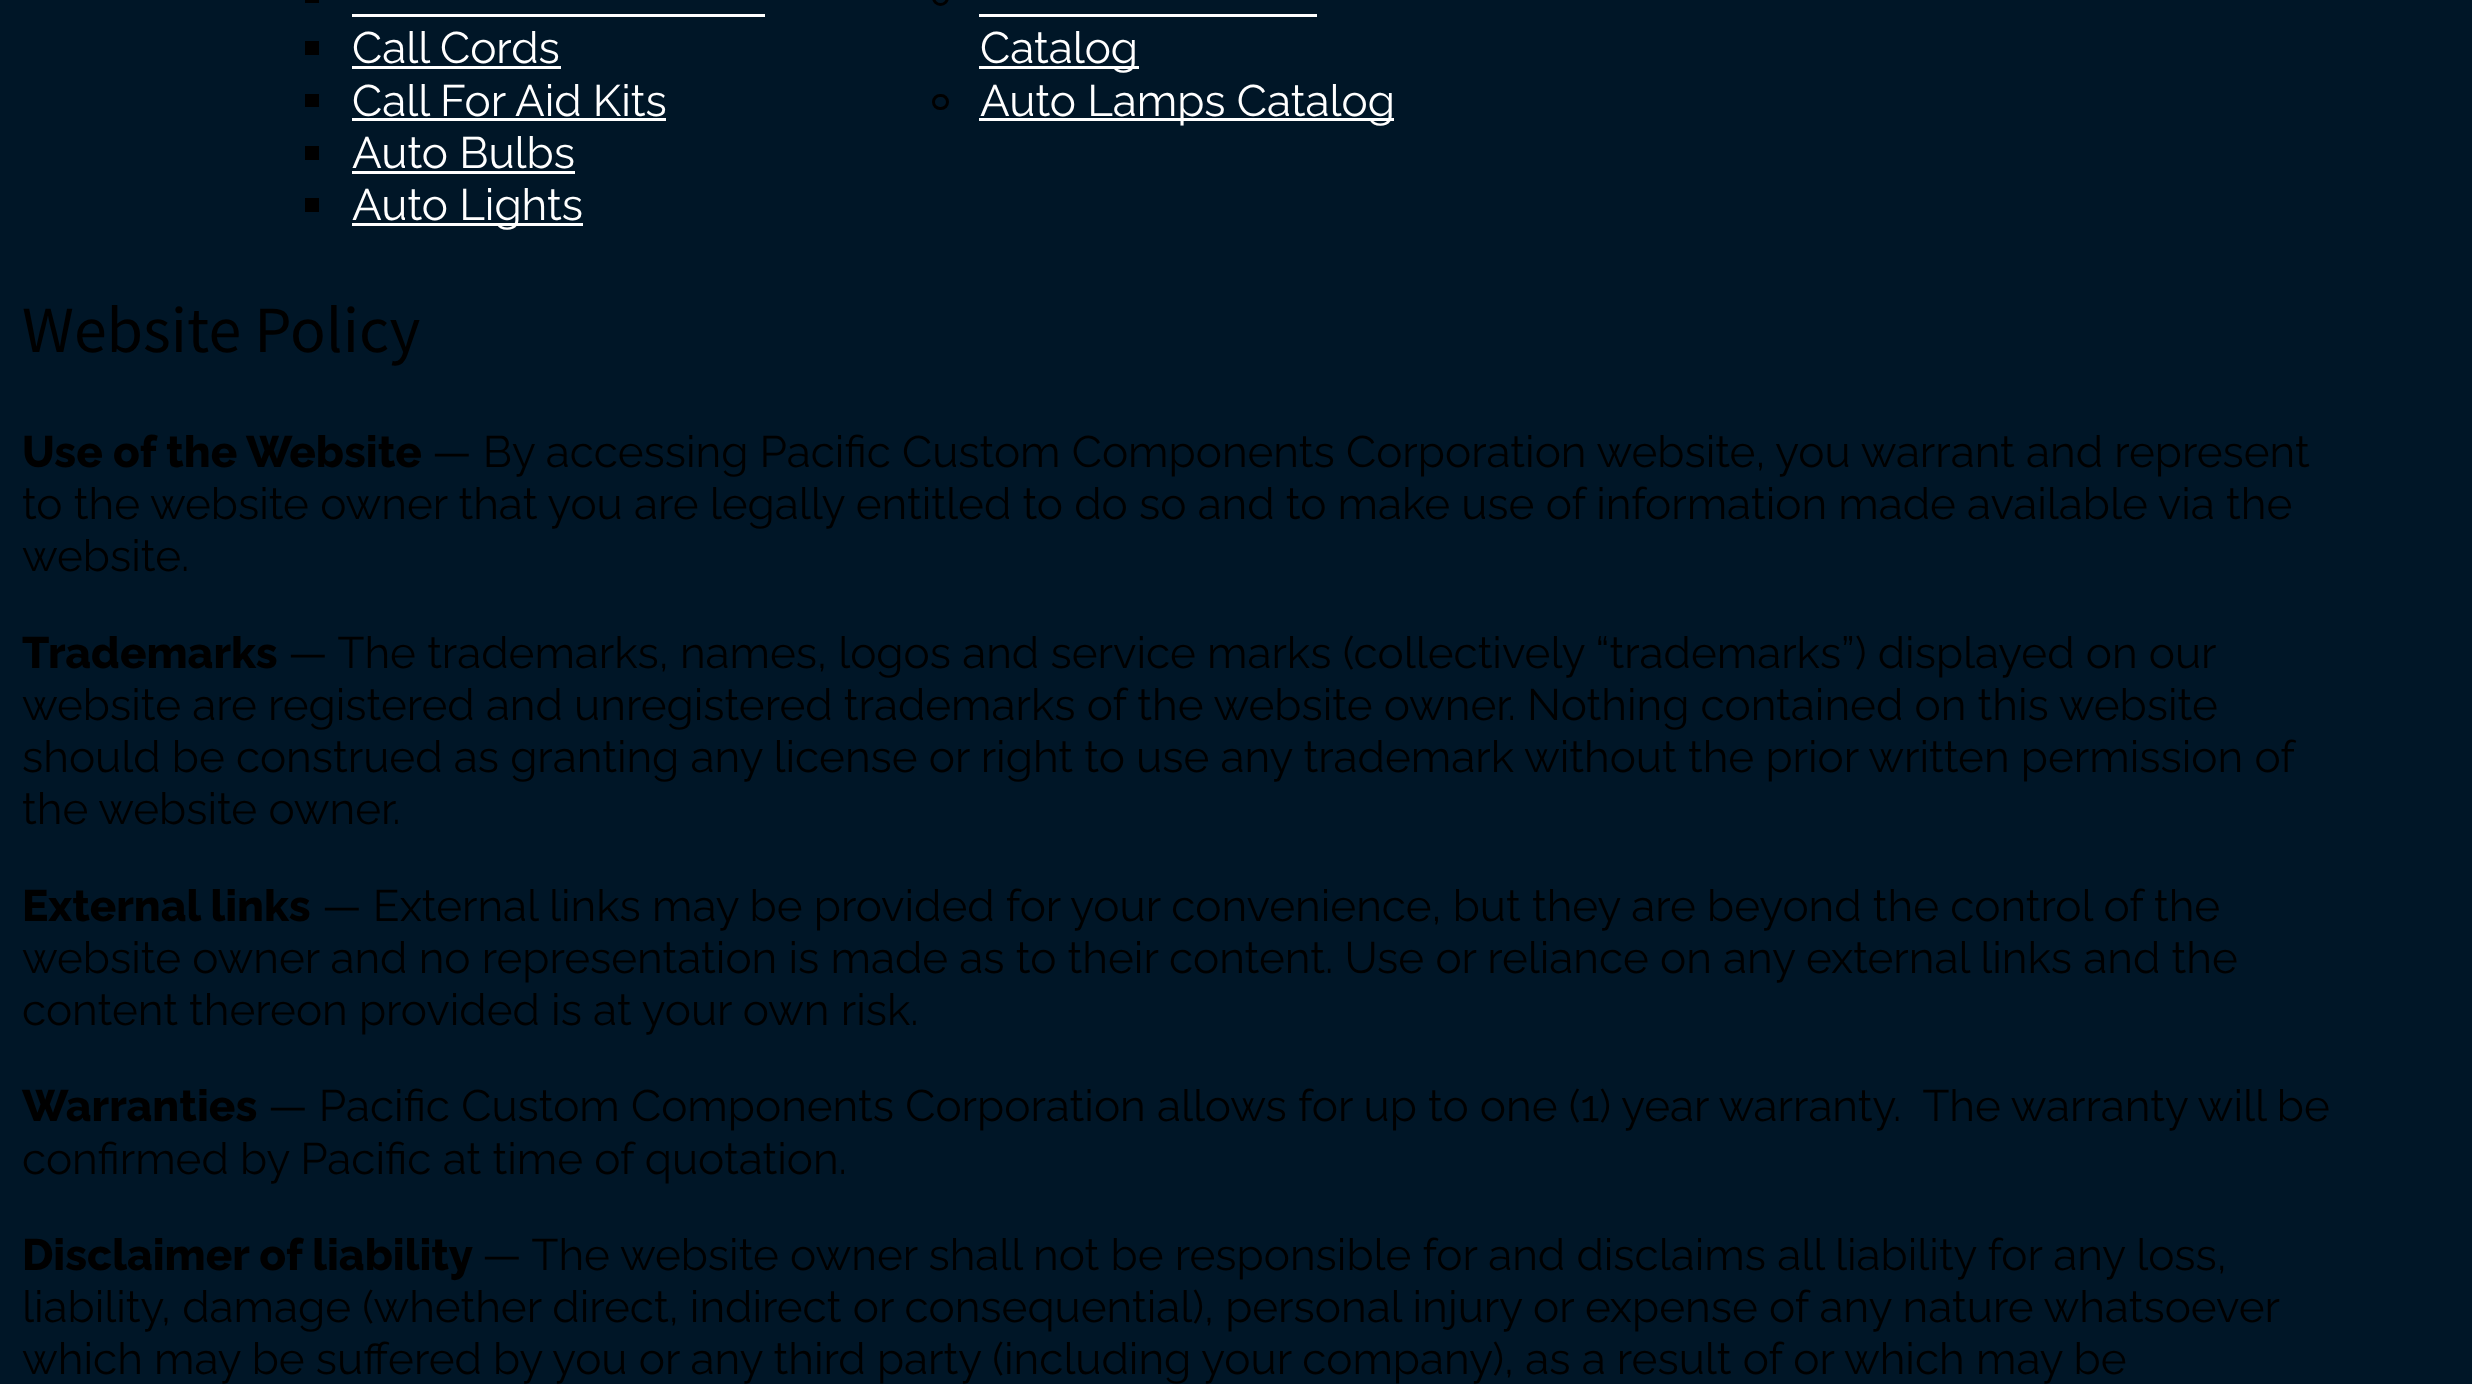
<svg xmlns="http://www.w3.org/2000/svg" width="2472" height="1384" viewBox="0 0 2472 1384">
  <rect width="100%" height="100%" fill="#001627"/>
  <rect x="305" y="0" width="14" height="3" fill="#000000"/>
  <rect x="352" y="14" width="413" height="3" fill="#ffffff"/>
  <rect x="305" y="41" width="14" height="14" fill="#000000"/>
  <text x="352" y="63" font-family="Raleway" font-size="44" fill="#ffffff">Call Cords</text>
  <rect x="352" y="66" width="209" height="3" fill="#ffffff"/>
  <rect x="305" y="94" width="14" height="13" fill="#000000"/>
  <text x="352" y="116" font-family="Raleway" font-size="44" fill="#ffffff">Call For Aid Kits</text>
  <rect x="352" y="118" width="314" height="3" fill="#ffffff"/>
  <circle cx="940.5" cy="-2.5" r="7" fill="none" stroke="#000000" stroke-width="3"/>
  <rect x="979" y="66" width="160" height="3" fill="#ffffff"/>
  <text x="980" y="63" font-family="Raleway" font-size="44" fill="#ffffff">Catalog</text>
  <rect x="979" y="14" width="338" height="3" fill="#ffffff"/>
  <rect x="933.5" y="95.5" width="14" height="13" rx="6.5" fill="none" stroke="#000000" stroke-width="3"/>
  <rect x="979" y="118" width="415" height="3" fill="#ffffff"/>
  <text x="980" y="116" font-family="Raleway" font-size="44" fill="#ffffff">Auto Lamps Catalog</text>
  <rect x="305" y="146" width="14" height="14" fill="#000000"/>
  <text x="352" y="168" font-family="Raleway" font-size="44" fill="#ffffff">Auto Bulbs</text>
  <rect x="352" y="171" width="223" height="3" fill="#ffffff"/>
  <rect x="305" y="198" width="14" height="14" fill="#000000"/>
  <rect x="352" y="223" width="231" height="3" fill="#ffffff"/>
  <text x="352" y="220" font-family="Raleway" font-size="44" fill="#ffffff">Auto Lights</text>
  <text x="22" y="352" font-family="Source Sans Pro" font-size="66" fill="#000000">Website Policy</text>
  <text x="22" y="467" font-family="Raleway" font-size="44" font-weight="800" fill="#000000">Use of the Website</text>
  <text x="432" y="467" font-family="Raleway" font-size="44" fill="#000000">— By accessing Pacific Custom Components Corporation website, you warrant and represent</text>
  <text x="22" y="519" font-family="Raleway" font-size="44" fill="#000000">to the website owner that you are legally entitled to do so and to make use of information made available via the</text>
  <text x="22" y="571" font-family="Raleway" font-size="44" fill="#000000">website.</text>
  <text x="22" y="668" font-family="Raleway" font-size="44" font-weight="800" fill="#000000">Trademarks</text>
  <text x="288" y="668" font-family="Raleway" font-size="44" fill="#000000">— The trademarks, names, logos and service marks (collectively “trademarks”) displayed on our</text>
  <text x="22" y="720" font-family="Raleway" font-size="44" fill="#000000">website are registered and unregistered trademarks of the website owner. Nothing contained on this website</text>
  <text x="22" y="772" font-family="Raleway" font-size="44" fill="#000000">should be construed as granting any license or right to use any trademark without the prior written permission of</text>
  <text x="22" y="824" font-family="Raleway" font-size="44" fill="#000000">the website owner.</text>
  <text x="22" y="921" font-family="Raleway" font-size="44" font-weight="800" fill="#000000">External links</text>
  <text x="322" y="921" font-family="Raleway" font-size="44" fill="#000000">— External links may be provided for your convenience, but they are beyond the control of the</text>
  <text x="22" y="973" font-family="Raleway" font-size="44" fill="#000000">website owner and no representation is made as to their content. Use or reliance on any external links and the</text>
  <text x="22" y="1025" font-family="Raleway" font-size="44" fill="#000000">content thereon provided is at your own risk.</text>
  <text x="22" y="1121" font-family="Raleway" font-size="44" font-weight="800" fill="#000000">Warranties</text>
  <text x="268" y="1121" font-family="Raleway" font-size="44" fill="#000000" xml:space="preserve">— Pacific Custom Components Corporation allows for up to one (1) year warranty.  The warranty will be</text>
  <text x="22" y="1174" font-family="Raleway" font-size="44" fill="#000000">confirmed by Pacific at time of quotation.</text>
  <text x="22" y="1270" font-family="Raleway" font-size="44" font-weight="800" fill="#000000">Disclaimer of liability</text>
  <text x="482" y="1270" font-family="Raleway" font-size="44" fill="#000000">— The website owner shall not be responsible for and disclaims all liability for any loss,</text>
  <text x="22" y="1322" font-family="Raleway" font-size="44" fill="#000000">liability, damage (whether direct, indirect or consequential), personal injury or expense of any nature whatsoever</text>
  <text x="22" y="1374" font-family="Raleway" font-size="44" fill="#000000">which may be suffered by you or any third party (including your company), as a result of or which may be</text>
</svg>
